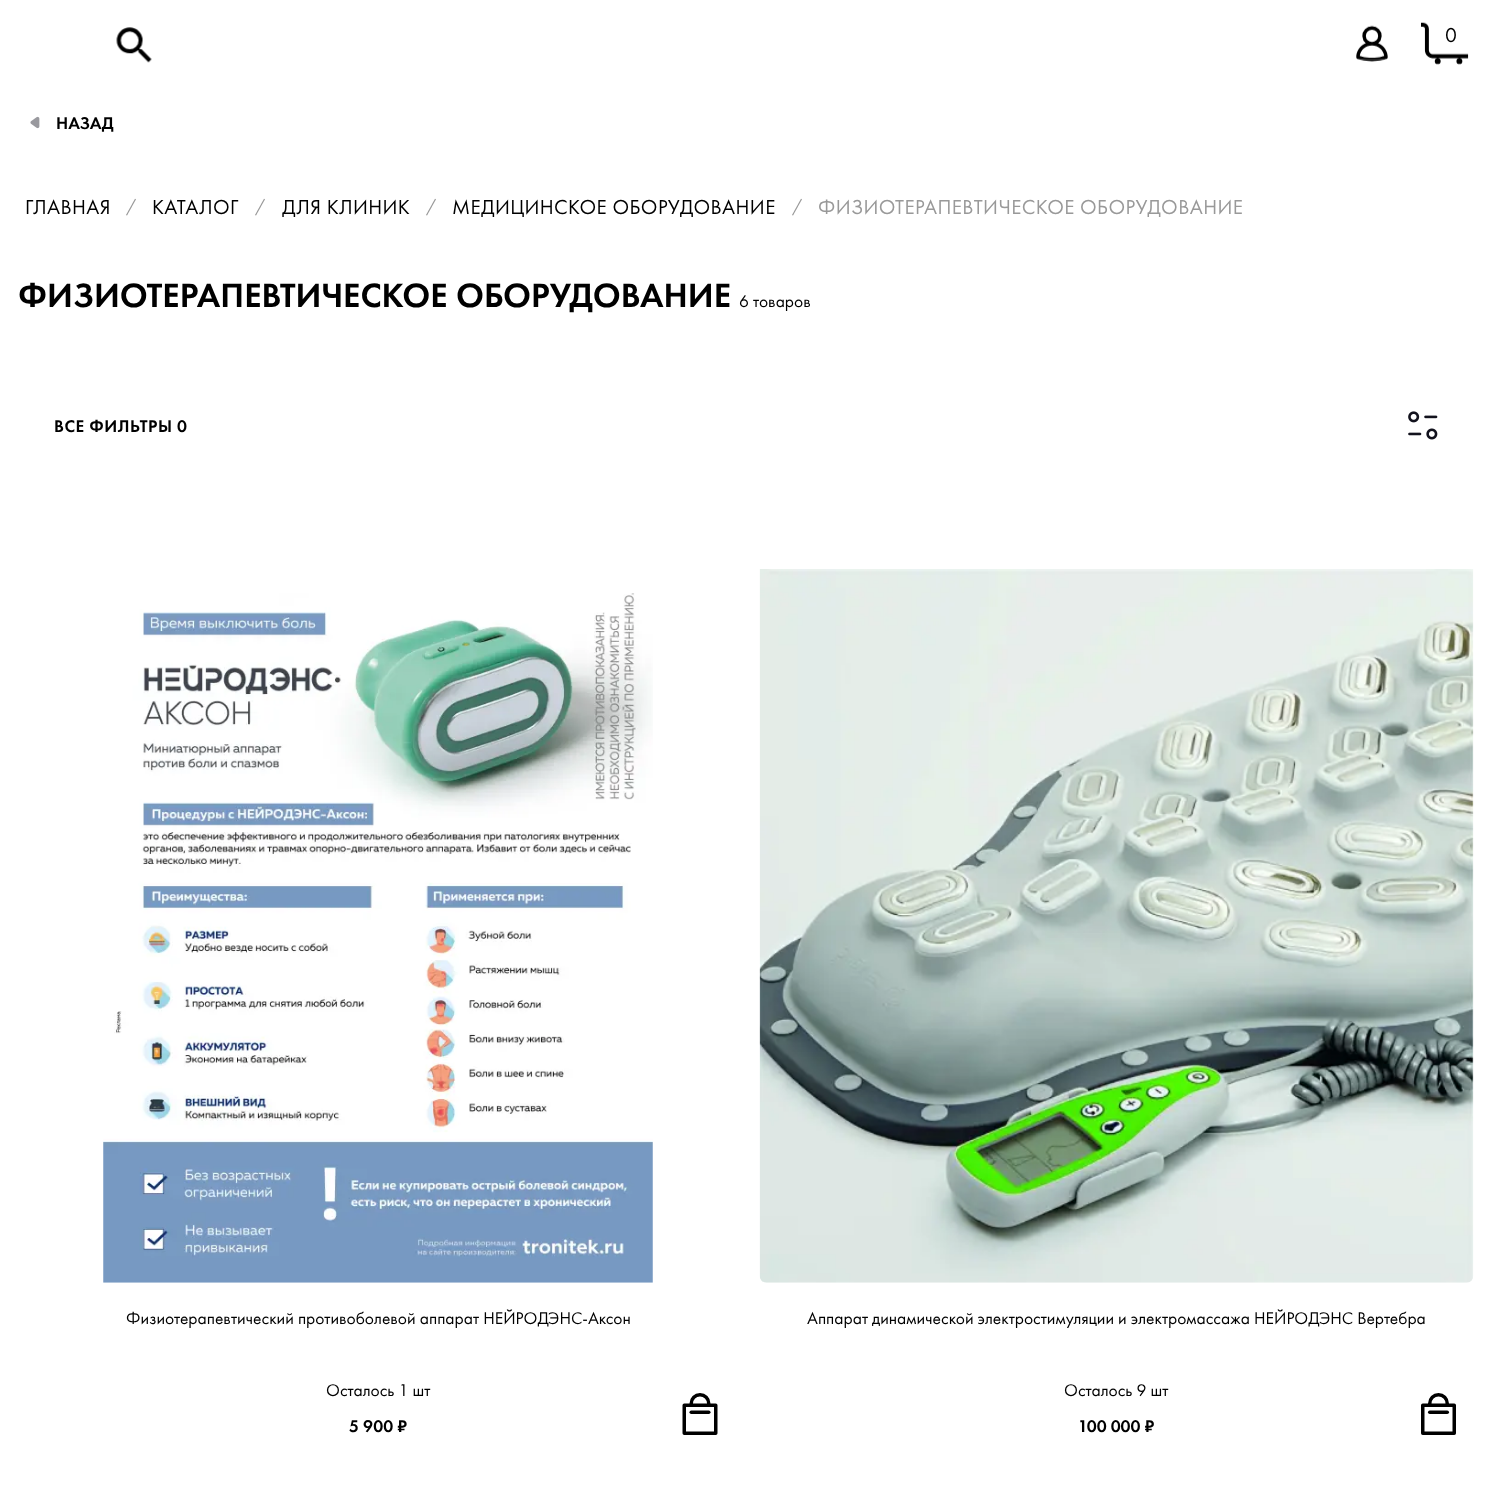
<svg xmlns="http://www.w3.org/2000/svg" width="1493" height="1504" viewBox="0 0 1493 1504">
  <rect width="100%" height="100%" fill="#ffffff"/>
  <image x="116" y="27" width="36" height="36" href="img1.png"/>
  <image x="1356" y="25" width="32" height="37" href="img2.png"/>
  <image x="1421" y="22" width="48" height="43" href="img3.png"/>
  <text x="1445" y="42" font-family="Futura PT" font-size="21" fill="#000000">0</text>
  <image x="30" y="116" width="10" height="13" href="img4.png"/>
  <text x="56" y="129" font-family="Futura PT" font-size="17.5" font-weight="500" fill="#000000">НАЗАД</text>
  <text x="25" y="214" font-family="Futura PT" font-size="21" letter-spacing="0.4" fill="#000000">ГЛАВНАЯ</text>
  <text x="126" y="212" font-family="Futura PT" font-size="17.5" fill="#999999">/</text>
  <text x="152" y="214" font-family="Futura PT" font-size="21" letter-spacing="0.4" fill="#000000">КАТАЛОГ</text>
  <text x="255" y="212" font-family="Futura PT" font-size="17.5" fill="#999999">/</text>
  <text x="282" y="214" font-family="Futura PT" font-size="21" letter-spacing="0.4" fill="#000000">ДЛЯ КЛИНИК</text>
  <text x="426" y="212" font-family="Futura PT" font-size="17.5" fill="#999999">/</text>
  <text x="452" y="214" font-family="Futura PT" font-size="21" letter-spacing="0.4" fill="#000000">МЕДИЦИНСКОЕ ОБОРУДОВАНИЕ</text>
  <text x="792" y="212" font-family="Futura PT" font-size="17.5" fill="#999999">/</text>
  <text x="818" y="214" font-family="Futura PT" font-size="21" letter-spacing="0.4" fill="#999999">ФИЗИОТЕРАПЕВТИЧЕСКОЕ ОБОРУДОВАНИЕ</text>
  <text x="18" y="307" font-family="Futura PT" font-size="35" font-weight="500" fill="#000000">ФИЗИОТЕРАПЕВТИЧЕСКОЕ ОБОРУДОВАНИЕ</text>
  <text x="739" y="307" font-family="Futura PT" font-size="17.5" fill="#000000">6 товаров</text>
  <text x="54" y="432" font-family="Futura PT" font-size="17.5" font-weight="500" letter-spacing="0.5" fill="#000000">ВСЕ ФИЛЬТРЫ 0</text>
  <image x="1408" y="411" width="30" height="29" href="img5.png"/>
  <image x="103" y="593" width="550" height="690" href="img6.png"/>
  <text x="126" y="1324" font-family="Futura PT" font-size="17.5" fill="#000000">Физиотерапевтический противоболевой аппарат НЕЙРОДЭНС-Аксон</text>
  <text x="326" y="1396" font-family="Futura PT" font-size="17.5" fill="#000000">Осталось 1 шт</text>
  <text x="349" y="1432" font-family="Futura PT" font-size="17.5" font-weight="500" fill="#000000">5 900 ₽</text>
  <image x="682" y="1393" width="36" height="42" href="img7.png"/>
  <image x="759" y="569" width="715" height="714" href="img8.png"/>
  <text x="807" y="1324" font-family="Futura PT" font-size="17.5" fill="#000000">Аппарат динамической электростимуляции и электромассажа НЕЙРОДЭНС Вертебра</text>
  <text x="1064" y="1396" font-family="Futura PT" font-size="17.5" fill="#000000">Осталось 9 шт</text>
  <text x="1078" y="1432" font-family="Futura PT" font-size="17.5" font-weight="500" fill="#000000">100 000 ₽</text>
  <image x="1421" y="1393" width="35" height="42" href="img9.png"/>
</svg>
